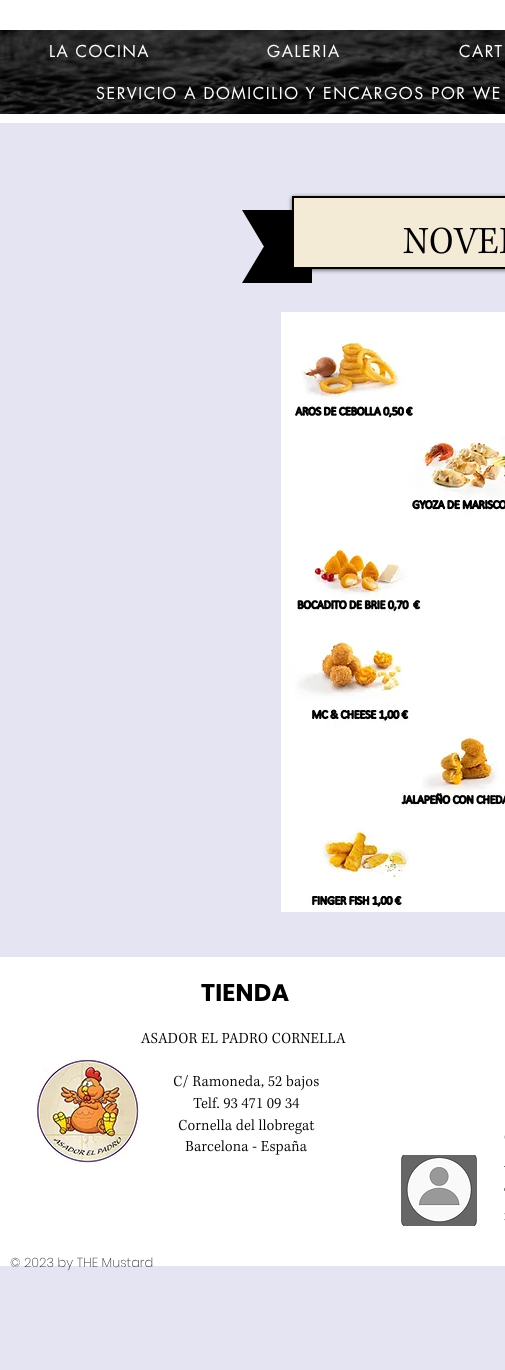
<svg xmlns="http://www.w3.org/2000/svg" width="505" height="1370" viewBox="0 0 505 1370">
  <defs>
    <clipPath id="clip1"><rect x="242" y="210" width="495" height="37"/></clipPath>
    <clipPath id="clip2"><rect x="242" y="247" width="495" height="36"/></clipPath>
    <filter id="blur1" x="-50%" y="-200%" width="200%" height="500%"><feGaussianBlur stdDeviation="2"/></filter>
  </defs>
  <rect width="100%" height="100%" fill="#e4e4f3"/>
  <rect x="0" y="0" width="505" height="123" fill="#ffffff"/>
  <image x="0" y="30" width="505" height="84" href="img1.png"/>
  <text x="49" y="57" font-family="futura" font-size="16" letter-spacing="1.6" fill="#ffffff">LA COCINA</text>
  <text x="267" y="57" font-family="futura" font-size="16" letter-spacing="1.6" fill="#ffffff">GALERIA</text>
  <text x="459" y="57" font-family="futura" font-size="16" letter-spacing="1.6" fill="#ffffff">CART</text>
  <text x="96" y="99" font-family="futura" font-size="16" letter-spacing="1.6" fill="#ffffff">SERVICIO A DOMICILIO Y ENCARGOS POR WE</text>
  <g clip-path="url(#clip1)">
    <path d="M242 210H312V310H302Z" fill="#000000"/>
  </g>
  <g clip-path="url(#clip2)">
    <path d="M312 283H242L302 183H312Z" fill="#000000"/>
  </g>
  <rect x="292" y="197" width="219" height="73" fill="#000000" fill-opacity="0.6" filter="url(#blur1)"/>
  <rect x="293" y="197" width="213" height="71" fill="#f4ebd7" stroke="#020202" stroke-width="2"/>
  <image x="403" y="227" width="102" height="27" href="img2.png"/>
  <image x="281" y="312" width="224" height="600" href="img3.png"/>
  <rect x="0" y="957" width="505" height="309" fill="#ffffff"/>
  <text x="201" y="1001" font-family="Poppins" font-size="24" font-weight="bold" letter-spacing="0.25" fill="#000000">TIENDA</text>
  <image x="140" y="1032" width="206" height="12" href="img4.png"/>
  <image x="35" y="1059" width="104" height="104" href="img5.png"/>
  <image x="173" y="1075" width="146" height="15" href="img6.png"/>
  <image x="193" y="1097" width="107" height="12" href="img7.png"/>
  <image x="178" y="1119" width="137" height="15" href="img8.png"/>
  <image x="185" y="1140" width="122" height="15" href="img9.png"/>
  <image x="504" y="1135" width="1" height="4" href="img10.png"/>
  <image x="401" y="1155" width="76" height="71" href="img11.png"/>
  <image x="503" y="1166" width="2" height="1" href="img12.png"/>
  <image x="504" y="1187" width="1" height="4" href="img13.png"/>
  <image x="504" y="1213" width="1" height="8" href="img14.png"/>
  <text x="10" y="1267" font-family="Poppins" font-size="13" font-weight="200" fill="#404040">© 2023 by THE Mustard</text>
</svg>
